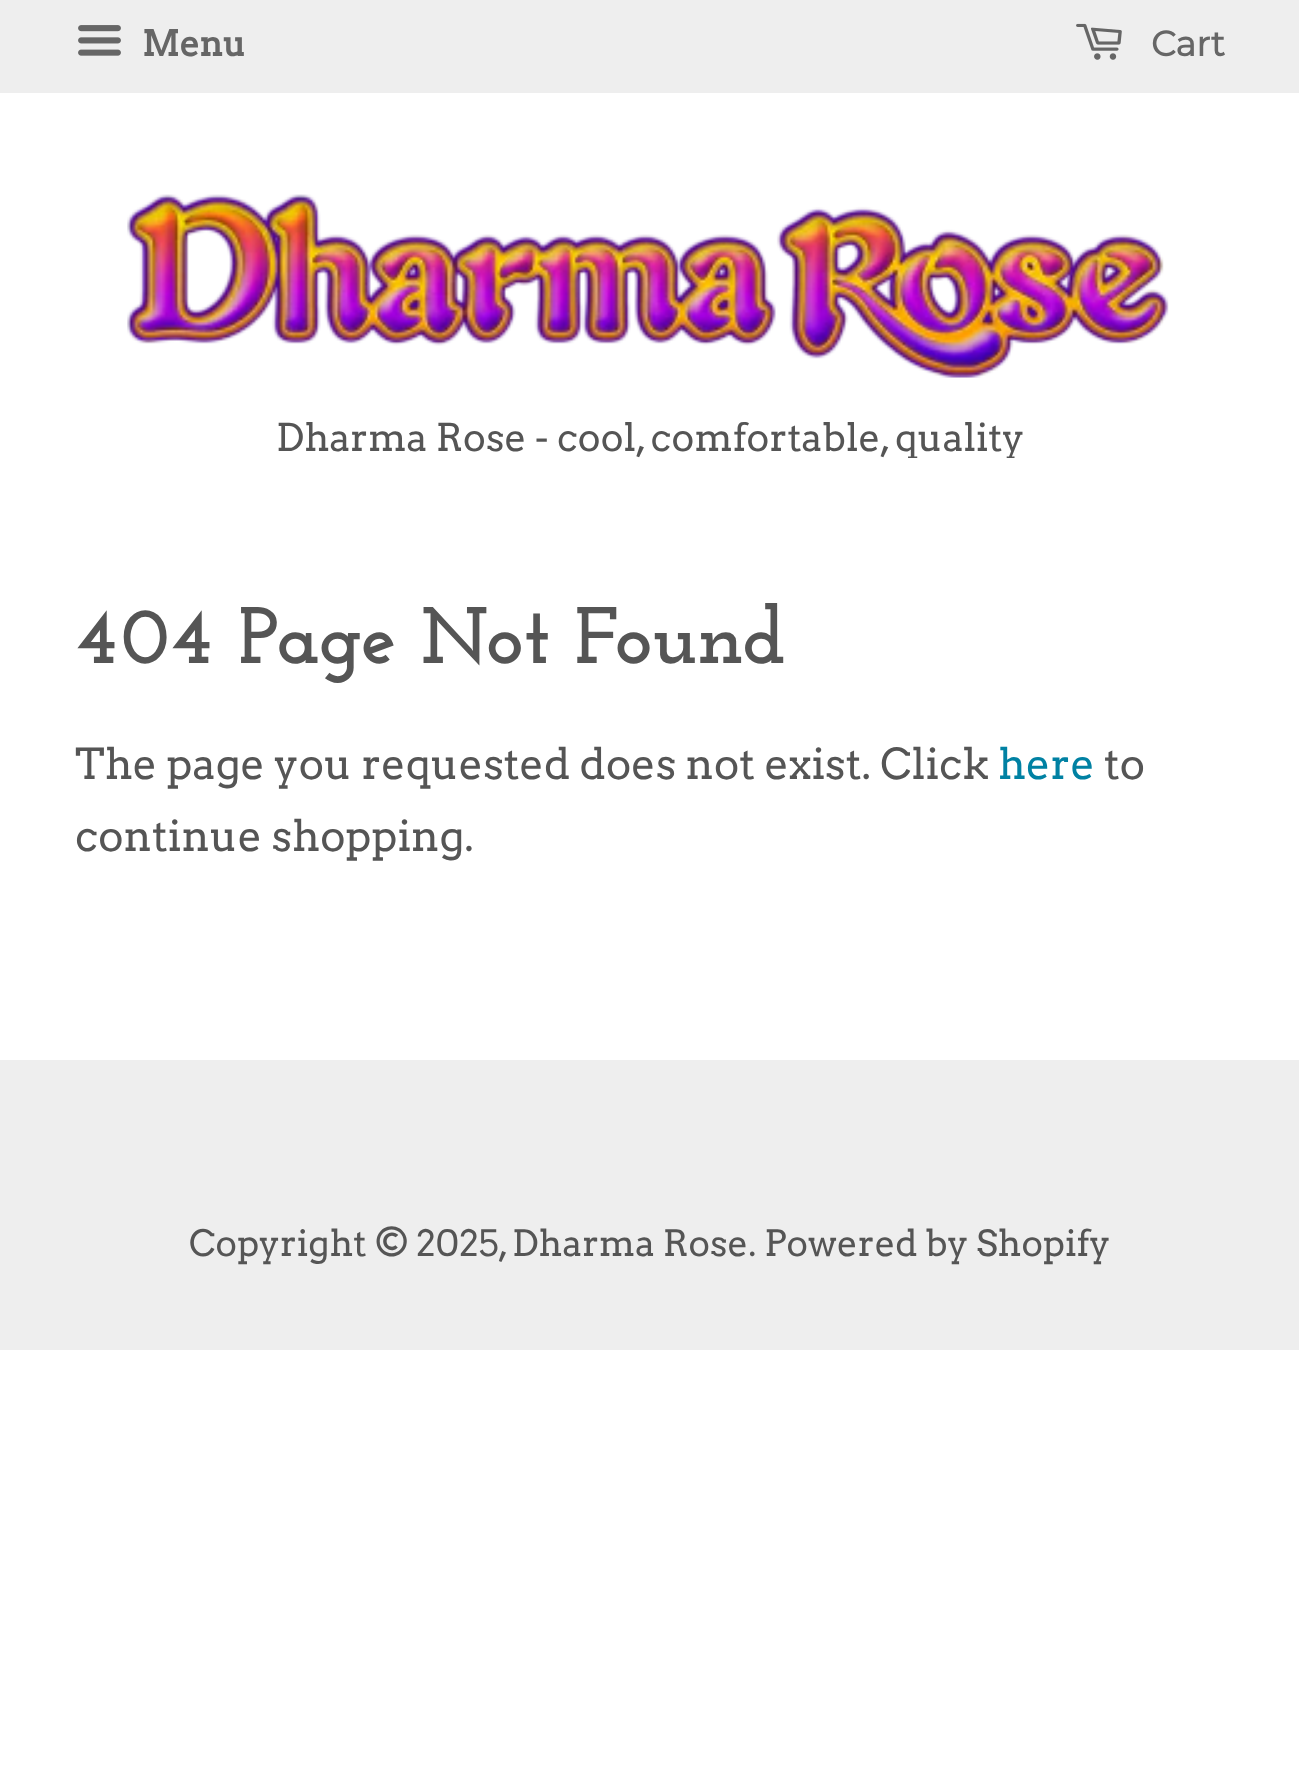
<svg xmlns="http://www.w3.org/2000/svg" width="1299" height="1785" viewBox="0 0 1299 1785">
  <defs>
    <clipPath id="clip1"><rect x="75" y="415" width="1150" height="43"/></clipPath>
  </defs>
  <rect width="100%" height="100%" fill="#ffffff"/>
  <rect x="0" y="0" width="1299" height="93" fill="#eeeeee"/>
  <image x="78" y="25" width="43" height="31" href="img1.png"/>
  <text x="142" y="56" font-family="Arvo" font-size="35" font-weight="bold" fill="#666666">Menu</text>
  <image x="1076" y="23" width="46" height="37" href="img2.png"/>
  <text x="1151" y="56" font-family="Montserrat" font-size="35" font-weight="bold" fill="#666666">Cart</text>
  <image x="127" y="194" width="1042" height="184" href="img3.png"/>
  <g clip-path="url(#clip1)">
    <text x="276" y="451" font-family="Arvo" font-size="38.25" fill="#555555">Dharma Rose - cool, comfortable, quality</text>
  </g>
  <text x="75" y="663" font-family="Josefin Slab" font-size="80" font-weight="100" fill="#555555">404 Page Not Found</text>
  <text x="75" y="779" font-family="Arvo" font-size="42.5" fill="#555555">The page you requested does not exist. Click</text>
  <text x="998" y="779" font-family="Arvo" font-size="42.5" fill="#0081a3">here</text>
  <text x="1104" y="779" font-family="Arvo" font-size="42.5" fill="#555555">to</text>
  <text x="75" y="851" font-family="Arvo" font-size="42.5" fill="#555555">continue shopping.</text>
  <rect x="0" y="1060" width="1299" height="290" fill="#eeeeee"/>
  <text x="189" y="1256" font-family="Arvo" font-size="36.1" fill="#555555">Copyright © 2025,</text>
  <text x="512" y="1256" font-family="Arvo" font-size="36.1" fill="#555555">Dharma Rose. Powered by Shopify</text>
</svg>
